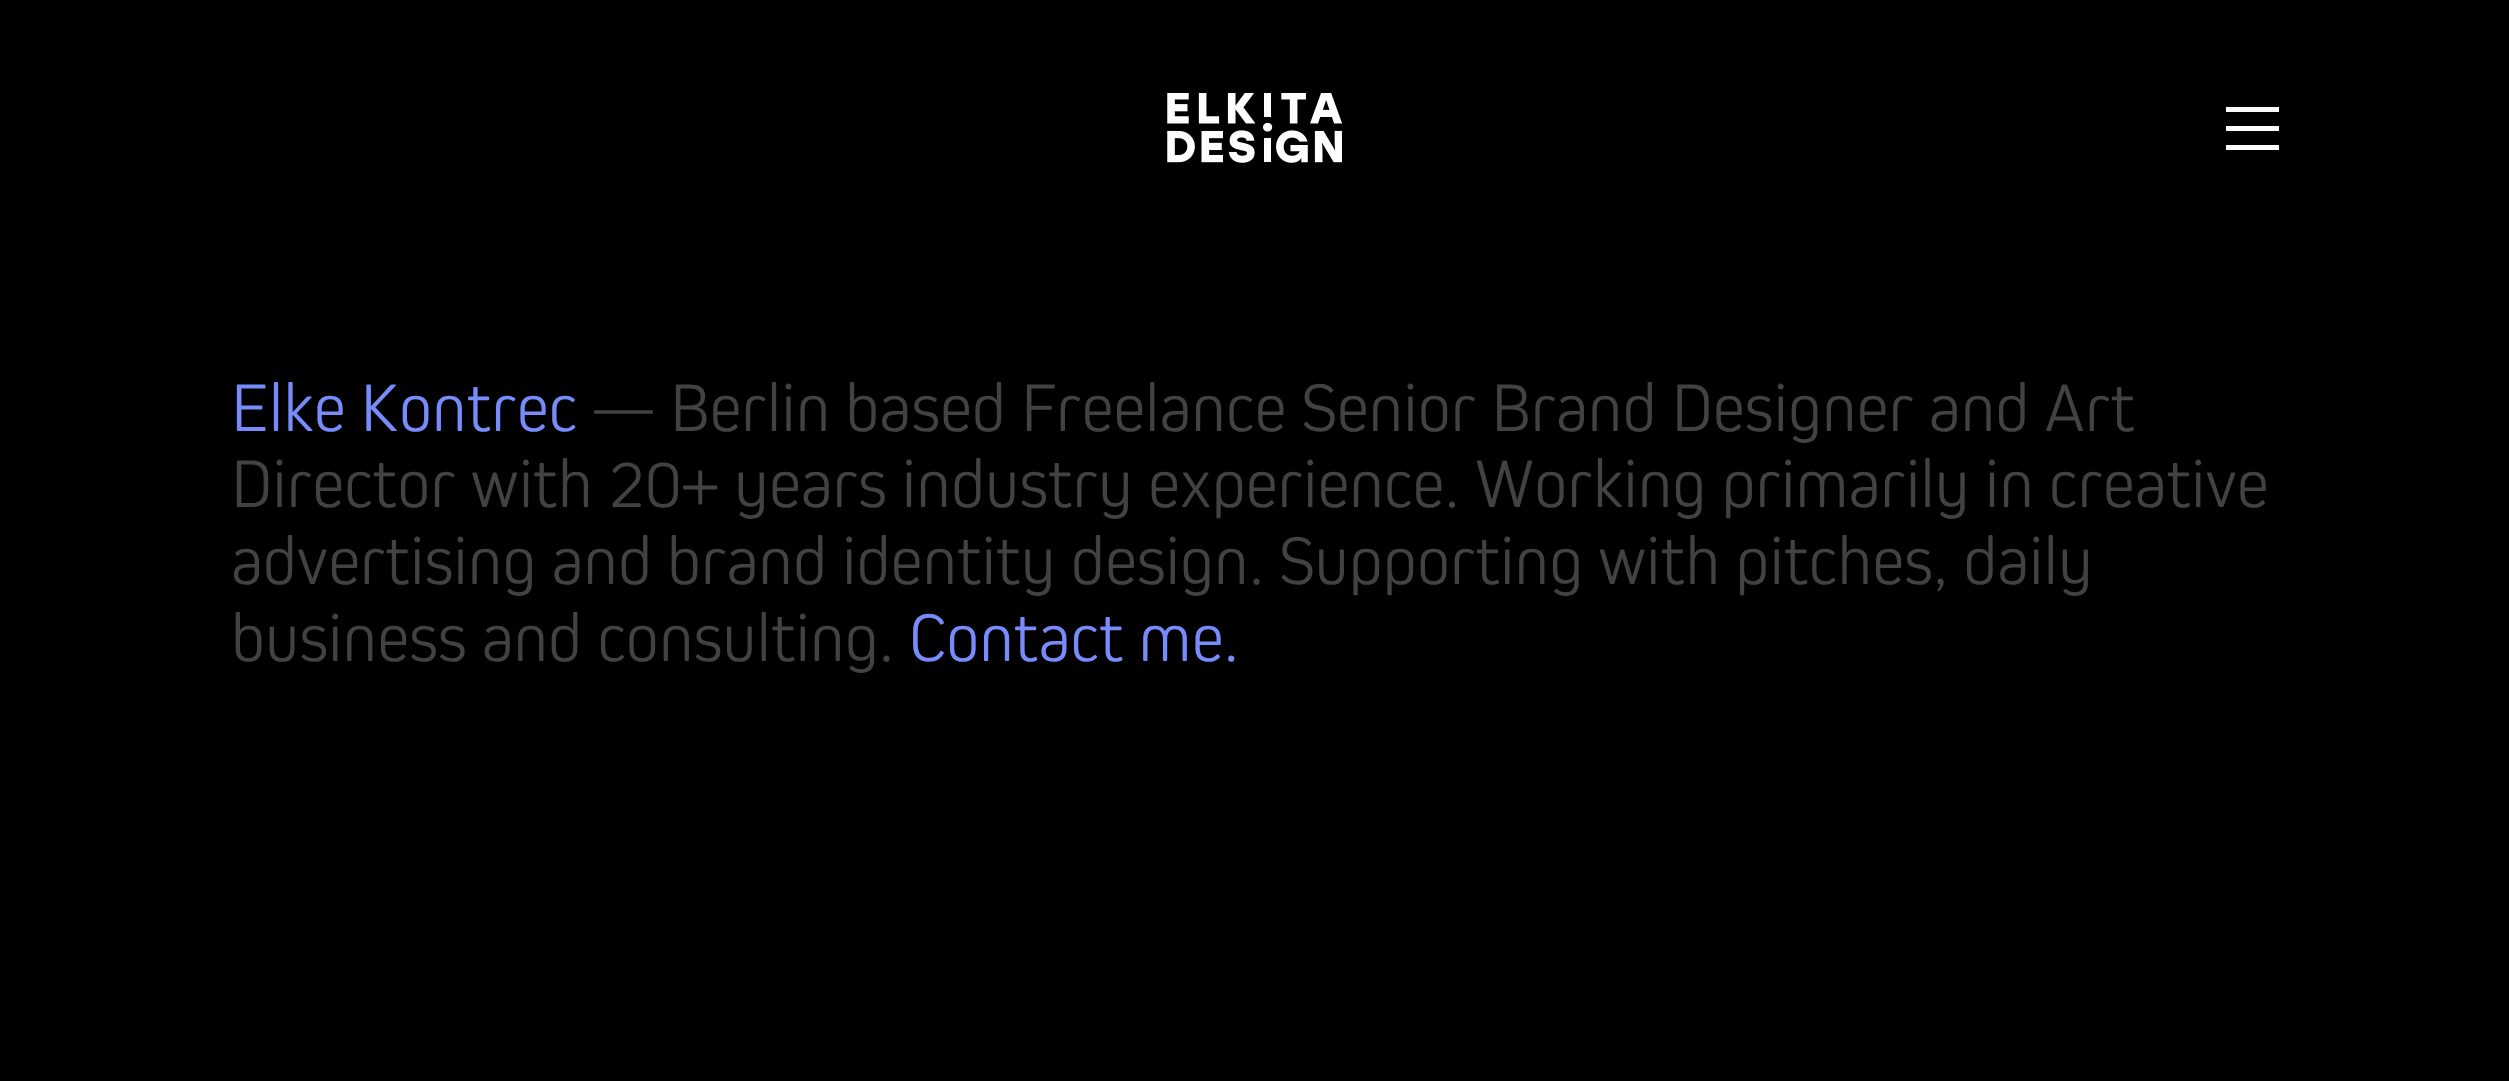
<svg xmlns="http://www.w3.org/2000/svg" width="2509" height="1081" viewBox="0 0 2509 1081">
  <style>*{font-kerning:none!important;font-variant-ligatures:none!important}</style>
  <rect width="100%" height="100%" fill="#000000"/>
  <image x="1167" y="93" width="175" height="70" href="img1.png"/>
  <rect x="2226" y="126" width="53" height="5" fill="#fdfdfd"/>
  <rect x="2226" y="107" width="53" height="5" fill="#fdfdfd"/>
  <rect x="2226" y="145" width="53" height="5" fill="#fdfdfd"/>
  <text x="231" y="431" font-family="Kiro" font-size="70" font-weight="300" fill="#778bfb">Elke Kontrec</text>
  <text x="592" y="431" font-family="Kiro" font-size="70" font-weight="300" fill="#424242">— Berlin based Freelance Senior Brand Designer and Art</text>
  <text x="231" y="507" font-family="Kiro" font-size="70" font-weight="300" fill="#424242">Director with 20+ years industry experience. Working primarily in creative</text>
  <text x="231" y="584" font-family="Kiro" font-size="70" font-weight="300" fill="#424242">advertising and brand identity design. Supporting with pitches, daily</text>
  <text x="231" y="661" font-family="Kiro" font-size="70" font-weight="300" fill="#424242">business and consulting.</text>
  <text x="909" y="661" font-family="Kiro" font-size="70" font-weight="300" fill="#778bfb">Contact me.</text>
</svg>
